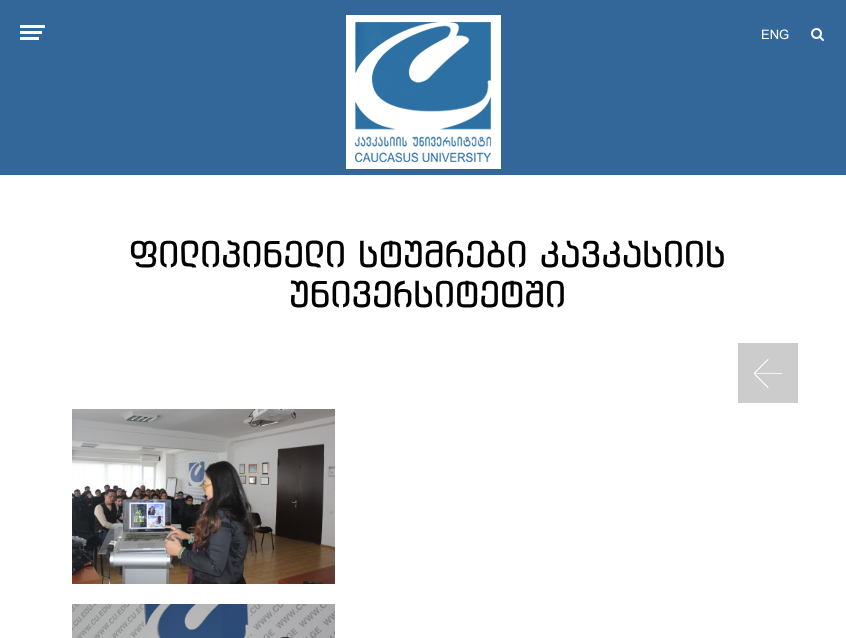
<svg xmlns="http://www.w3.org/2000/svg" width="846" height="638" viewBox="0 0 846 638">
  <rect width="100%" height="100%" fill="#336699"/>
  <rect x="20" y="25" width="25" height="3" fill="#ffffff"/>
  <rect x="20" y="31" width="22" height="3" fill="#ffffff"/>
  <rect x="20" y="37" width="19" height="3" fill="#ffffff"/>
  <rect x="346" y="15" width="155" height="154" fill="#ffffff"/>
  <image x="355" y="22" width="136" height="140" href="img1.png"/>
  <text x="761" y="39" font-family="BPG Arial" font-size="13" fill="#ffffff">ENG</text>
  <image x="811" y="28" width="13" height="13" href="img2.png"/>
  <rect x="0" y="175" width="846" height="463" fill="#ffffff"/>
  <text x="129" y="267" font-family="'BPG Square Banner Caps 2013'" font-size="36" fill="#000000">ფილიპინელი სტუმრები კავკასიის</text>
  <text x="289" y="307" font-family="'BPG Square Banner Caps 2013'" font-size="36" fill="#000000">უნივერსიტეტში</text>
  <rect x="738" y="343" width="60" height="60" fill="#cccccc"/>
  <image x="754" y="359" width="28" height="29" href="img3.png"/>
  <image x="72" y="409" width="263" height="175" href="img4.png"/>
  <image x="72" y="604" width="263" height="34" href="img5.png"/>
</svg>
